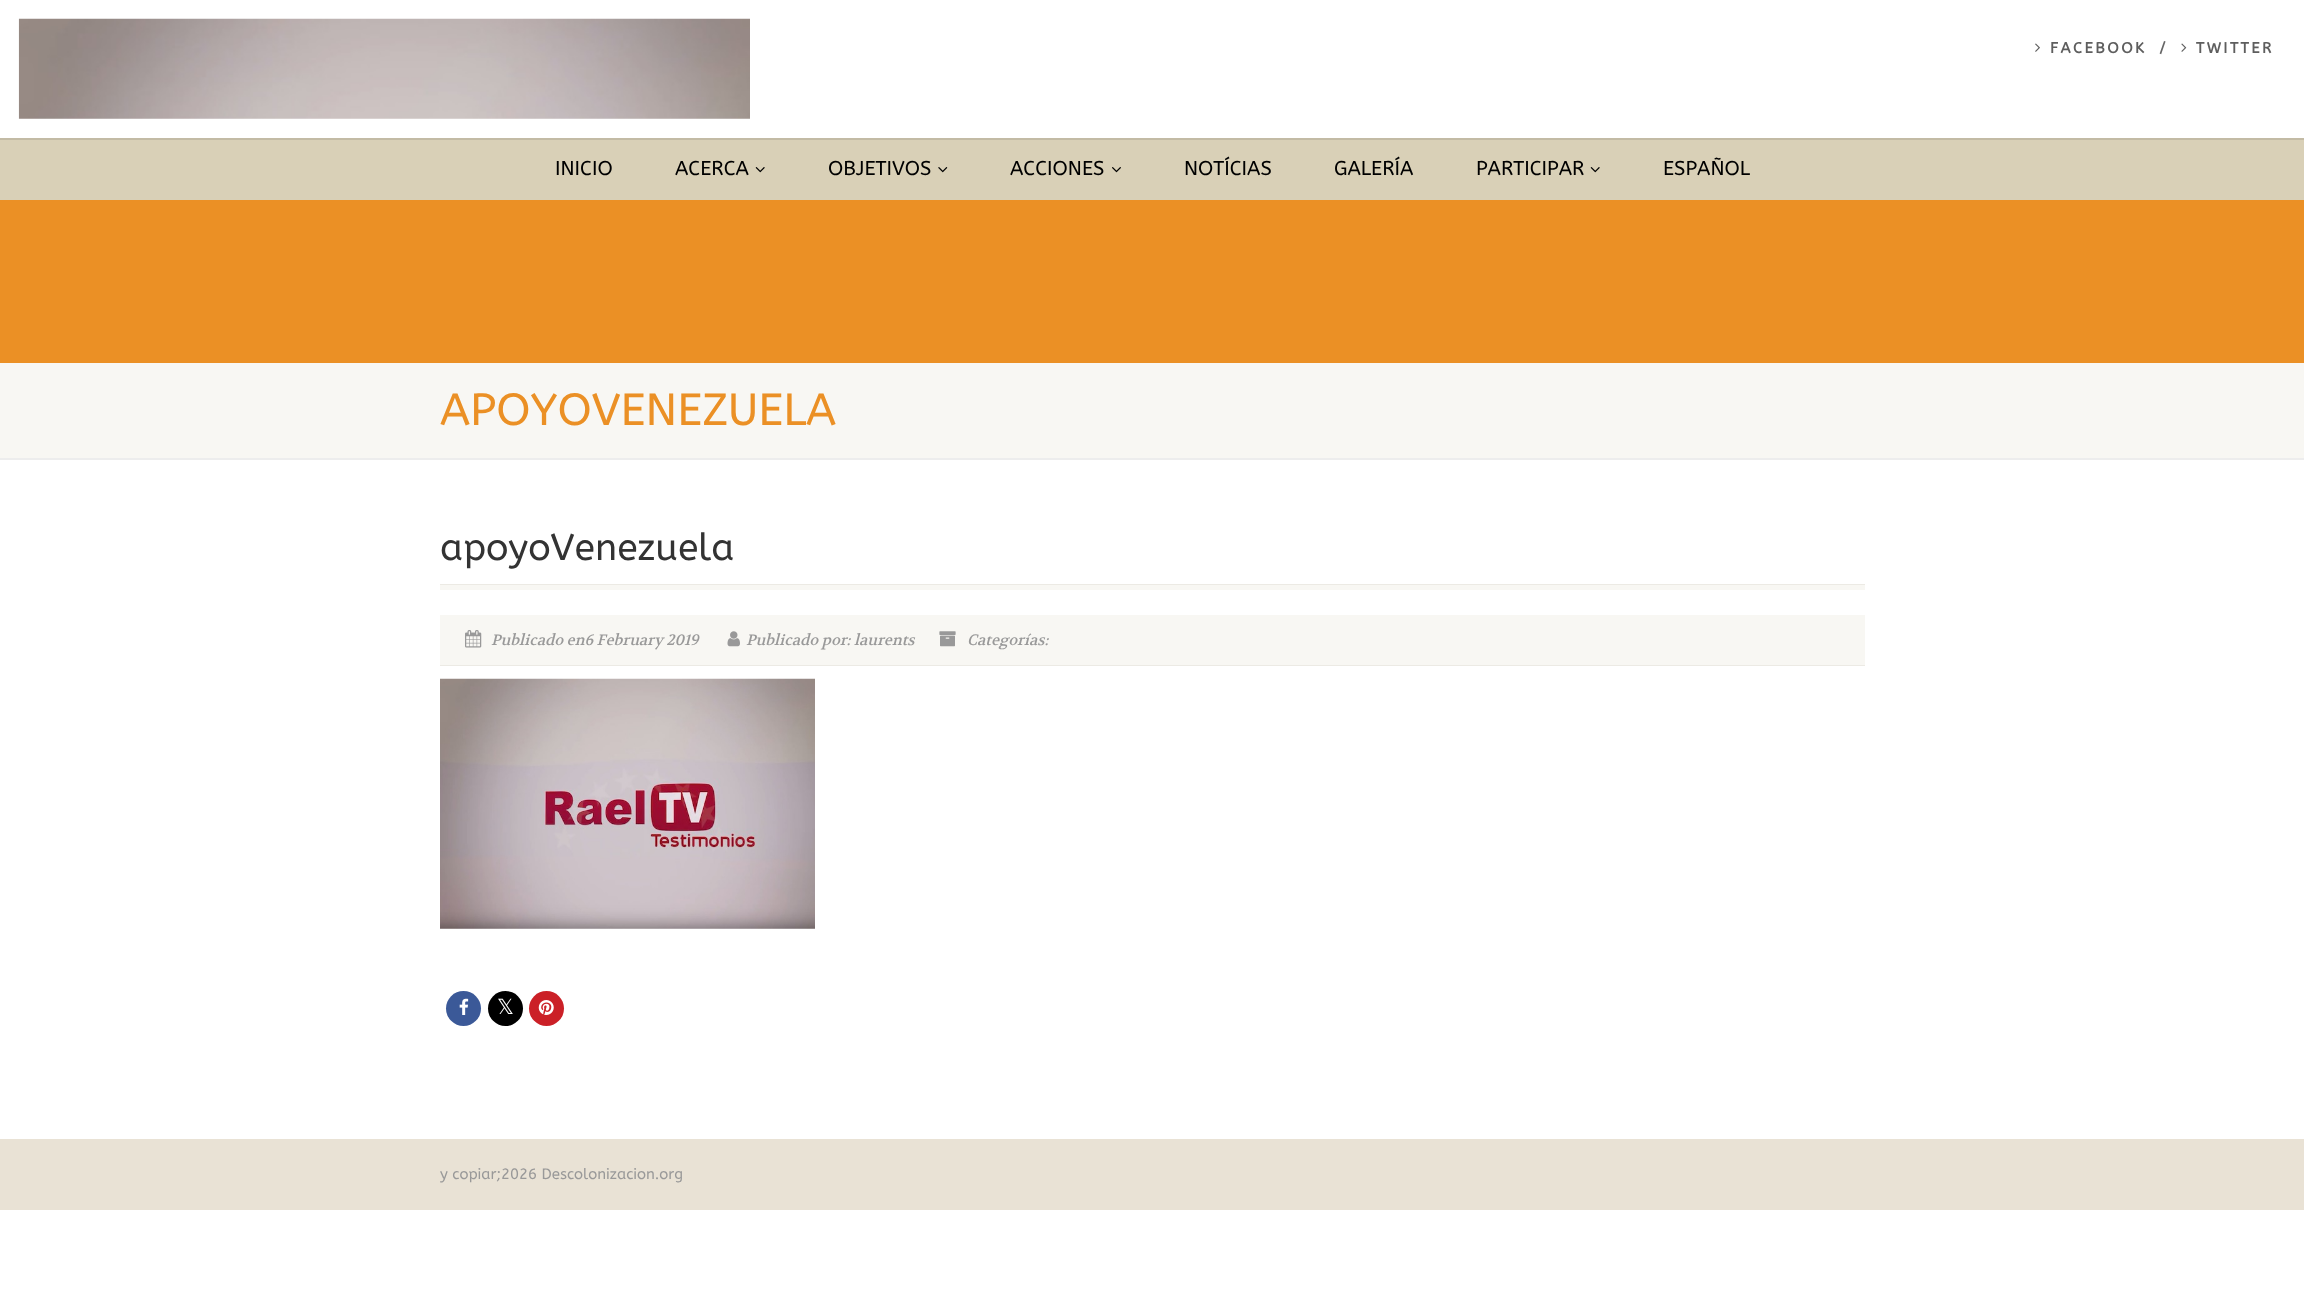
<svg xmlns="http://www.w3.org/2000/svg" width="2304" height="1294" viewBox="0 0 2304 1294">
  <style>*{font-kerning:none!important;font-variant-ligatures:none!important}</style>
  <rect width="100%" height="100%" fill="#ffffff"/>
  <rect x="0" y="138" width="2304" height="2" fill="#c3bba5"/>
  <image x="18" y="18" width="732" height="101" href="img1.png"/>
  <image x="2035" y="43" width="5" height="9" href="img2.png"/>
  <text x="2050" y="53" font-family="ABeeZee" font-size="15" font-weight="bold" letter-spacing="2.5" fill="#5e5e5e">FACEBOOK</text>
  <text x="2159" y="53" font-family="ABeeZee" font-size="15" font-weight="bold" letter-spacing="2.5" fill="#666666">/</text>
  <image x="2181" y="43" width="6" height="9" href="img3.png"/>
  <text x="2196" y="53" font-family="ABeeZee" font-size="15" font-weight="bold" letter-spacing="2.5" fill="#5e5e5e">TWITTER</text>
  <rect x="0" y="140" width="2304" height="60" fill="#d9d0b7"/>
  <text x="555" y="175" font-family="ABeeZee" font-size="20" fill="#000000">INICIO</text>
  <text x="675" y="175" font-family="ABeeZee" font-size="20" fill="#000000">ACERCA</text>
  <image x="755" y="167" width="10" height="6" href="img4.png"/>
  <text x="828" y="175" font-family="ABeeZee" font-size="20" fill="#000000">OBJETIVOS</text>
  <image x="938" y="167" width="10" height="6" href="img5.png"/>
  <text x="1010" y="175" font-family="ABeeZee" font-size="20" fill="#000000">ACCIONES</text>
  <image x="1112" y="167" width="9" height="6" href="img6.png"/>
  <text x="1184" y="175" font-family="ABeeZee" font-size="20" fill="#000000">NOTÍCIAS</text>
  <text x="1334" y="175" font-family="ABeeZee" font-size="20" fill="#000000">GALERÍA</text>
  <text x="1476" y="175" font-family="ABeeZee" font-size="20" fill="#000000">PARTICIPAR</text>
  <image x="1590" y="167" width="10" height="6" href="img4.png"/>
  <text x="1663" y="175" font-family="ABeeZee" font-size="20" fill="#000000">ESPAÑOL</text>
  <rect x="0" y="200" width="2304" height="163" fill="#eb9025"/>
  <rect x="0" y="458" width="2304" height="2" fill="#ededed"/>
  <rect x="0" y="363" width="2304" height="95" fill="#f8f7f3"/>
  <text x="440" y="425" font-family="ABeeZee" font-size="45" fill="#eb9025">APOYOVENEZUELA</text>
  <rect x="440" y="584" width="1425" height="1" fill="#eceae4"/>
  <text x="440" y="560" font-family="ABeeZee" font-size="37.5" fill="#333333">apoyoVenezuela</text>
  <rect x="440" y="585" width="1425" height="5" fill="#f8f7f3"/>
  <rect x="440" y="615" width="1425" height="50" fill="#f8f7f3"/>
  <rect x="440" y="665" width="1425" height="1" fill="#eceae4"/>
  <image x="465" y="630" width="17" height="18" href="img7.png"/>
  <text x="491" y="645" font-family="Volkhov" font-size="15" font-style="italic" fill="#999999">Publicado en6 February 2019</text>
  <image x="727" y="631" width="13" height="16" href="img8.png"/>
  <text x="746" y="645" font-family="Volkhov" font-size="15" font-style="italic" fill="#999999">Publicado por: laurents</text>
  <image x="939" y="631" width="17" height="16" href="img9.png"/>
  <text x="967" y="645" font-family="Volkhov" font-size="15" font-style="italic" fill="#999999">Categorías:</text>
  <image x="440" y="678" width="375" height="251" href="img10.png"/>
  <circle cx="463.5" cy="1008.5" r="17.5" fill="#3b5998"/>
  <image x="459" y="998" width="10" height="17" href="img11.png"/>
  <circle cx="505.5" cy="1008.5" r="17.5" fill="#000000"/>
  <text x="497" y="1014" font-family="DejaVu Sans" font-size="21" fill="#ffffff">𝕏</text>
  <circle cx="546.5" cy="1008.5" r="17.5" fill="#cb2027"/>
  <image x="538" y="1000" width="16" height="15" href="img12.png"/>
  <rect x="0" y="1139" width="2304" height="71" fill="#e9e2d5"/>
  <text x="440" y="1179" font-family="ABeeZee" font-size="15" fill="#999999">y copiar;2026 Descolonizacion.org</text>
</svg>
